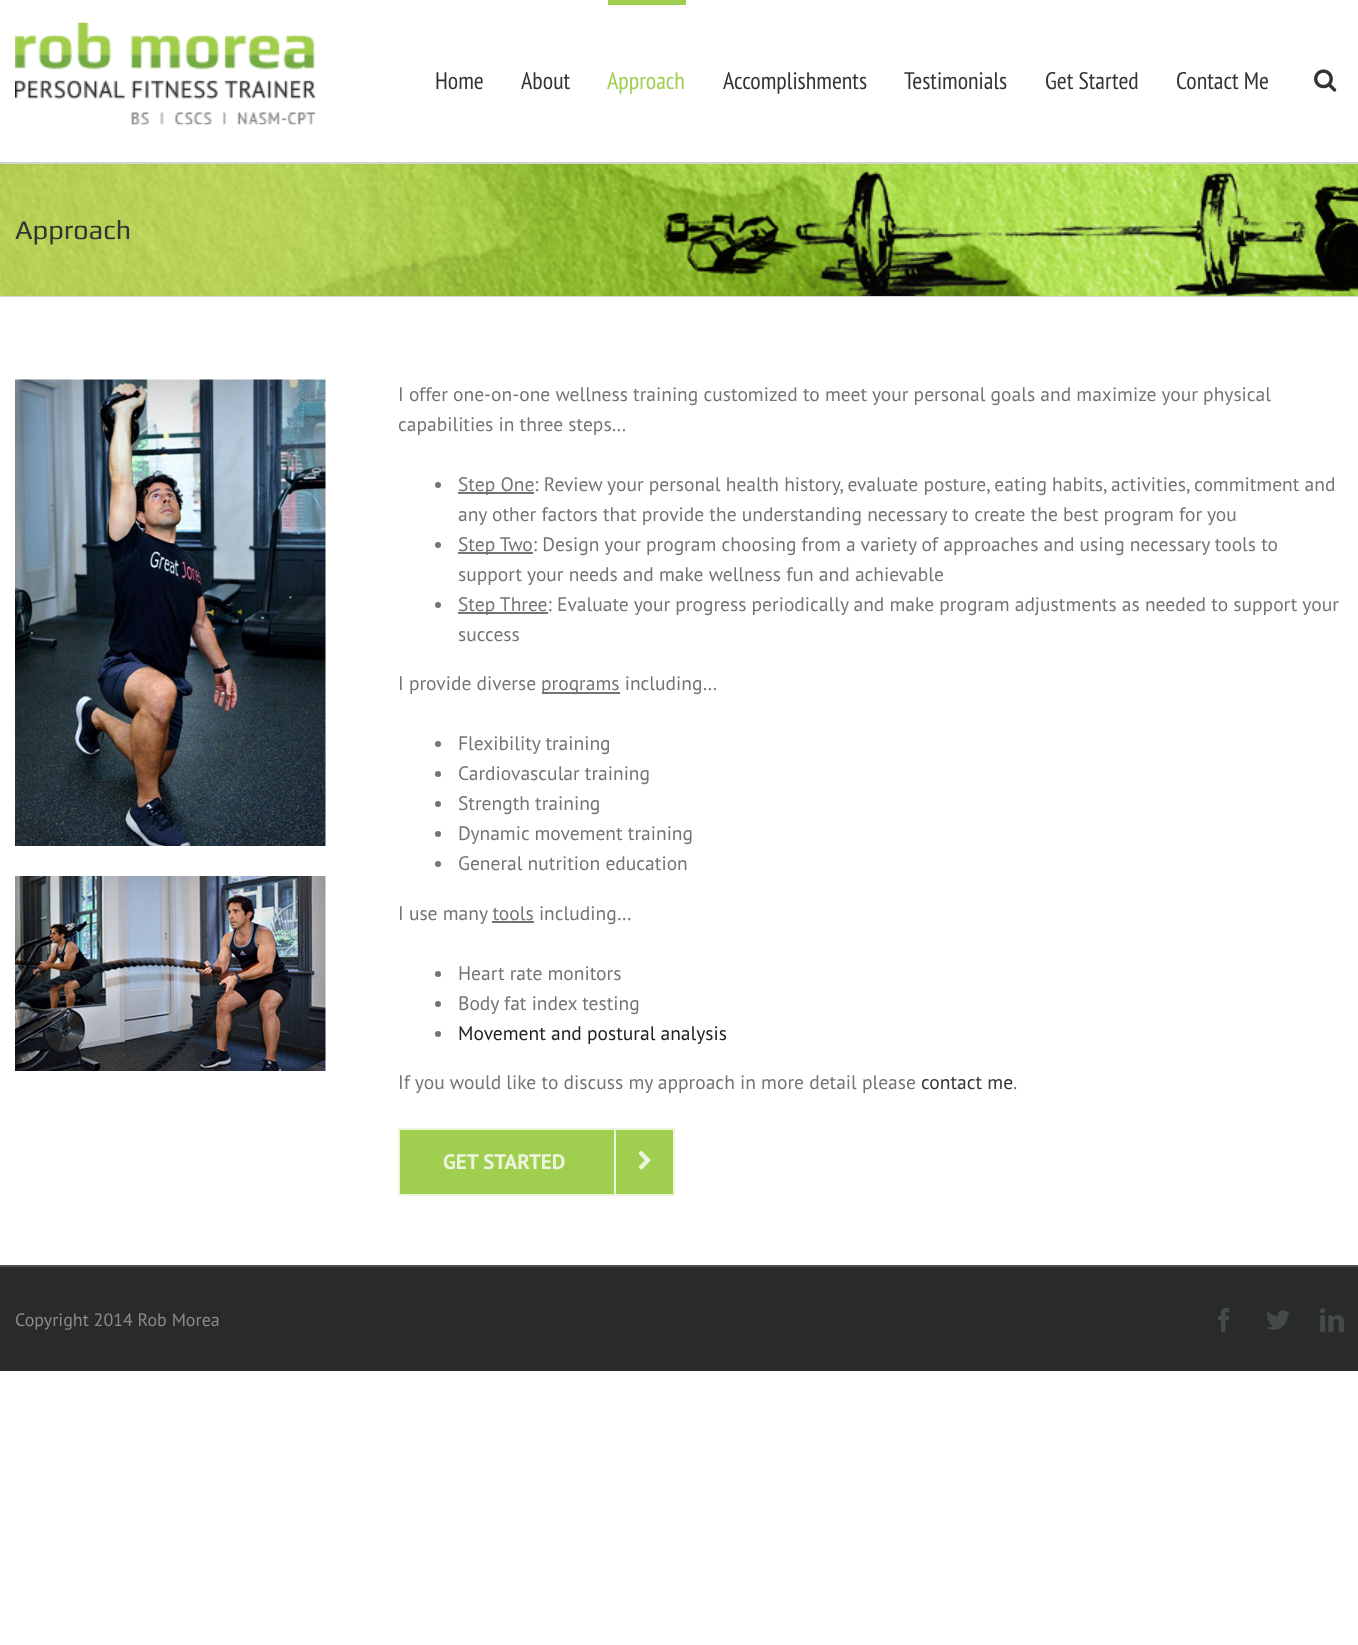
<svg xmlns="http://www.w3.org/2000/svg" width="1358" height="1645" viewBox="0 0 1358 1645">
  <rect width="100%" height="100%" fill="#ffffff"/>
  <image x="15" y="22" width="300" height="103" href="img1.png"/>
  <text x="435" y="89" font-family="PT Sans Narrow" font-size="24" fill="#333333">Home</text>
  <text x="521" y="89" font-family="PT Sans Narrow" font-size="24" fill="#333333">About</text>
  <rect x="608" y="0" width="78" height="5" fill="#a0ce4e"/>
  <text x="607" y="89" font-family="PT Sans Narrow" font-size="24" fill="#a0ce4e">Approach</text>
  <text x="723" y="89" font-family="PT Sans Narrow" font-size="24" fill="#333333">Accomplishments</text>
  <text x="904" y="89" font-family="PT Sans Narrow" font-size="24" fill="#333333">Testimonials</text>
  <text x="1045" y="89" font-family="PT Sans Narrow" font-size="24" fill="#333333">Get Started</text>
  <text x="1176" y="89" font-family="PT Sans Narrow" font-size="24" fill="#333333">Contact Me</text>
  <image x="1314" y="69" width="23" height="23" href="img2.png"/>
  <image x="0" y="164" width="1358" height="132" href="img3.png"/>
  <rect x="0" y="162" width="1358" height="2" fill="#d2d3d4"/>
  <rect x="0" y="296" width="1358" height="1" fill="#d2d3d4"/>
  <text x="15" y="239" font-family="Play" font-size="27" fill="#333333">Approach</text>
  <image x="15" y="379" width="311" height="467" href="img4.png"/>
  <image x="15" y="876" width="311" height="195" href="img5.png"/>
  <text x="398" y="401" font-family="PT Sans" font-size="19.5" fill="#747474">I offer one-on-one wellness training customized to meet your personal goals and maximize your physical</text>
  <text x="398" y="431" font-family="PT Sans" font-size="19.5" fill="#747474">capabilities in three steps…</text>
  <circle cx="438" cy="485" r="3" fill="#747474"/>
  <rect x="458" y="492" width="76" height="2" fill="#747474"/>
  <text x="458" y="491" font-family="PT Sans" font-size="19.5" fill="#747474">Step One: Review your personal health history, evaluate posture, eating habits, activities, commitment and</text>
  <text x="458" y="521" font-family="PT Sans" font-size="19.5" fill="#747474">any other factors that provide the understanding necessary to create the best program for you</text>
  <circle cx="438" cy="545" r="3" fill="#747474"/>
  <rect x="458" y="552" width="75" height="2" fill="#747474"/>
  <text x="458" y="551" font-family="PT Sans" font-size="19.5" fill="#747474">Step Two: Design your program choosing from a variety of approaches and using necessary tools to</text>
  <text x="458" y="581" font-family="PT Sans" font-size="19.5" fill="#747474">support your needs and make wellness fun and achievable</text>
  <circle cx="438" cy="605" r="3" fill="#747474"/>
  <rect x="458" y="612" width="90" height="2" fill="#747474"/>
  <text x="458" y="611" font-family="PT Sans" font-size="19.5" fill="#747474">Step Three: Evaluate your progress periodically and make program adjustments as needed to support your</text>
  <text x="458" y="641" font-family="PT Sans" font-size="19.5" fill="#747474">success</text>
  <text x="398" y="690" font-family="PT Sans" font-size="19.5" fill="#747474">I provide diverse</text>
  <rect x="542" y="692" width="78" height="2" fill="#747474"/>
  <text x="541" y="690" font-family="PT Sans" font-size="19.5" fill="#747474">programs including…</text>
  <circle cx="438" cy="744" r="3" fill="#747474"/>
  <text x="458" y="750" font-family="PT Sans" font-size="19.5" fill="#747474">Flexibility training</text>
  <circle cx="438" cy="774" r="3" fill="#747474"/>
  <text x="458" y="780" font-family="PT Sans" font-size="19.5" fill="#747474">Cardiovascular training</text>
  <circle cx="438" cy="804" r="3" fill="#747474"/>
  <text x="458" y="810" font-family="PT Sans" font-size="19.5" fill="#747474">Strength training</text>
  <circle cx="438" cy="834" r="3" fill="#747474"/>
  <text x="458" y="840" font-family="PT Sans" font-size="19.5" fill="#747474">Dynamic movement training</text>
  <circle cx="438" cy="864" r="3" fill="#747474"/>
  <text x="458" y="870" font-family="PT Sans" font-size="19.5" fill="#747474">General nutrition education</text>
  <text x="398" y="920" font-family="PT Sans" font-size="19.5" fill="#747474">I use many tools including…</text>
  <rect x="492" y="921" width="42" height="2" fill="#747474"/>
  <circle cx="438" cy="974" r="3" fill="#747474"/>
  <text x="458" y="980" font-family="PT Sans" font-size="19.5" fill="#747474">Heart rate monitors</text>
  <circle cx="438" cy="1004" r="3" fill="#747474"/>
  <text x="458" y="1010" font-family="PT Sans" font-size="19.5" fill="#747474">Body fat index testing</text>
  <circle cx="438" cy="1034" r="3" fill="#747474"/>
  <text x="458" y="1040" font-family="PT Sans" font-size="19.5" fill="#222222">Movement and postural analysis</text>
  <text x="398" y="1089" font-family="PT Sans" font-size="19.5" fill="#747474">If you would like to discuss my approach in more detail please</text>
  <text x="921" y="1089" font-family="PT Sans" font-size="19.5" fill="#333333">contact me</text>
  <text x="1013" y="1089" font-family="PT Sans" font-size="19.5" fill="#747474">.</text>
  <rect x="398" y="1128" width="277" height="68" rx="3" fill="#a0ce4e"/>
  <rect x="399" y="1129" width="275" height="66" rx="2" fill="none" stroke="#ffffff" stroke-opacity="0.8" stroke-width="2"/>
  <text x="443" y="1169" font-family="PT Sans" font-size="21" font-weight="bold" fill="#ecf5dc">GET STARTED</text>
  <rect x="614" y="1130" width="2" height="64" fill="#ecf5dc"/>
  <image x="638" y="1150" width="13" height="20" href="img6.png"/>
  <rect x="0" y="1267" width="1358" height="104" fill="#282a2b"/>
  <rect x="0" y="1265" width="1358" height="2" fill="#4b4c4d"/>
  <text x="15" y="1326" font-family="PT Sans" font-size="18" fill="#8c8989">Copyright 2014 Rob Morea</text>
  <image x="1218" y="1308" width="12" height="24" href="img7.png"/>
  <image x="1266" y="1310" width="24" height="20" href="img8.png"/>
  <image x="1320" y="1308" width="24" height="24" href="img9.png"/>
</svg>
